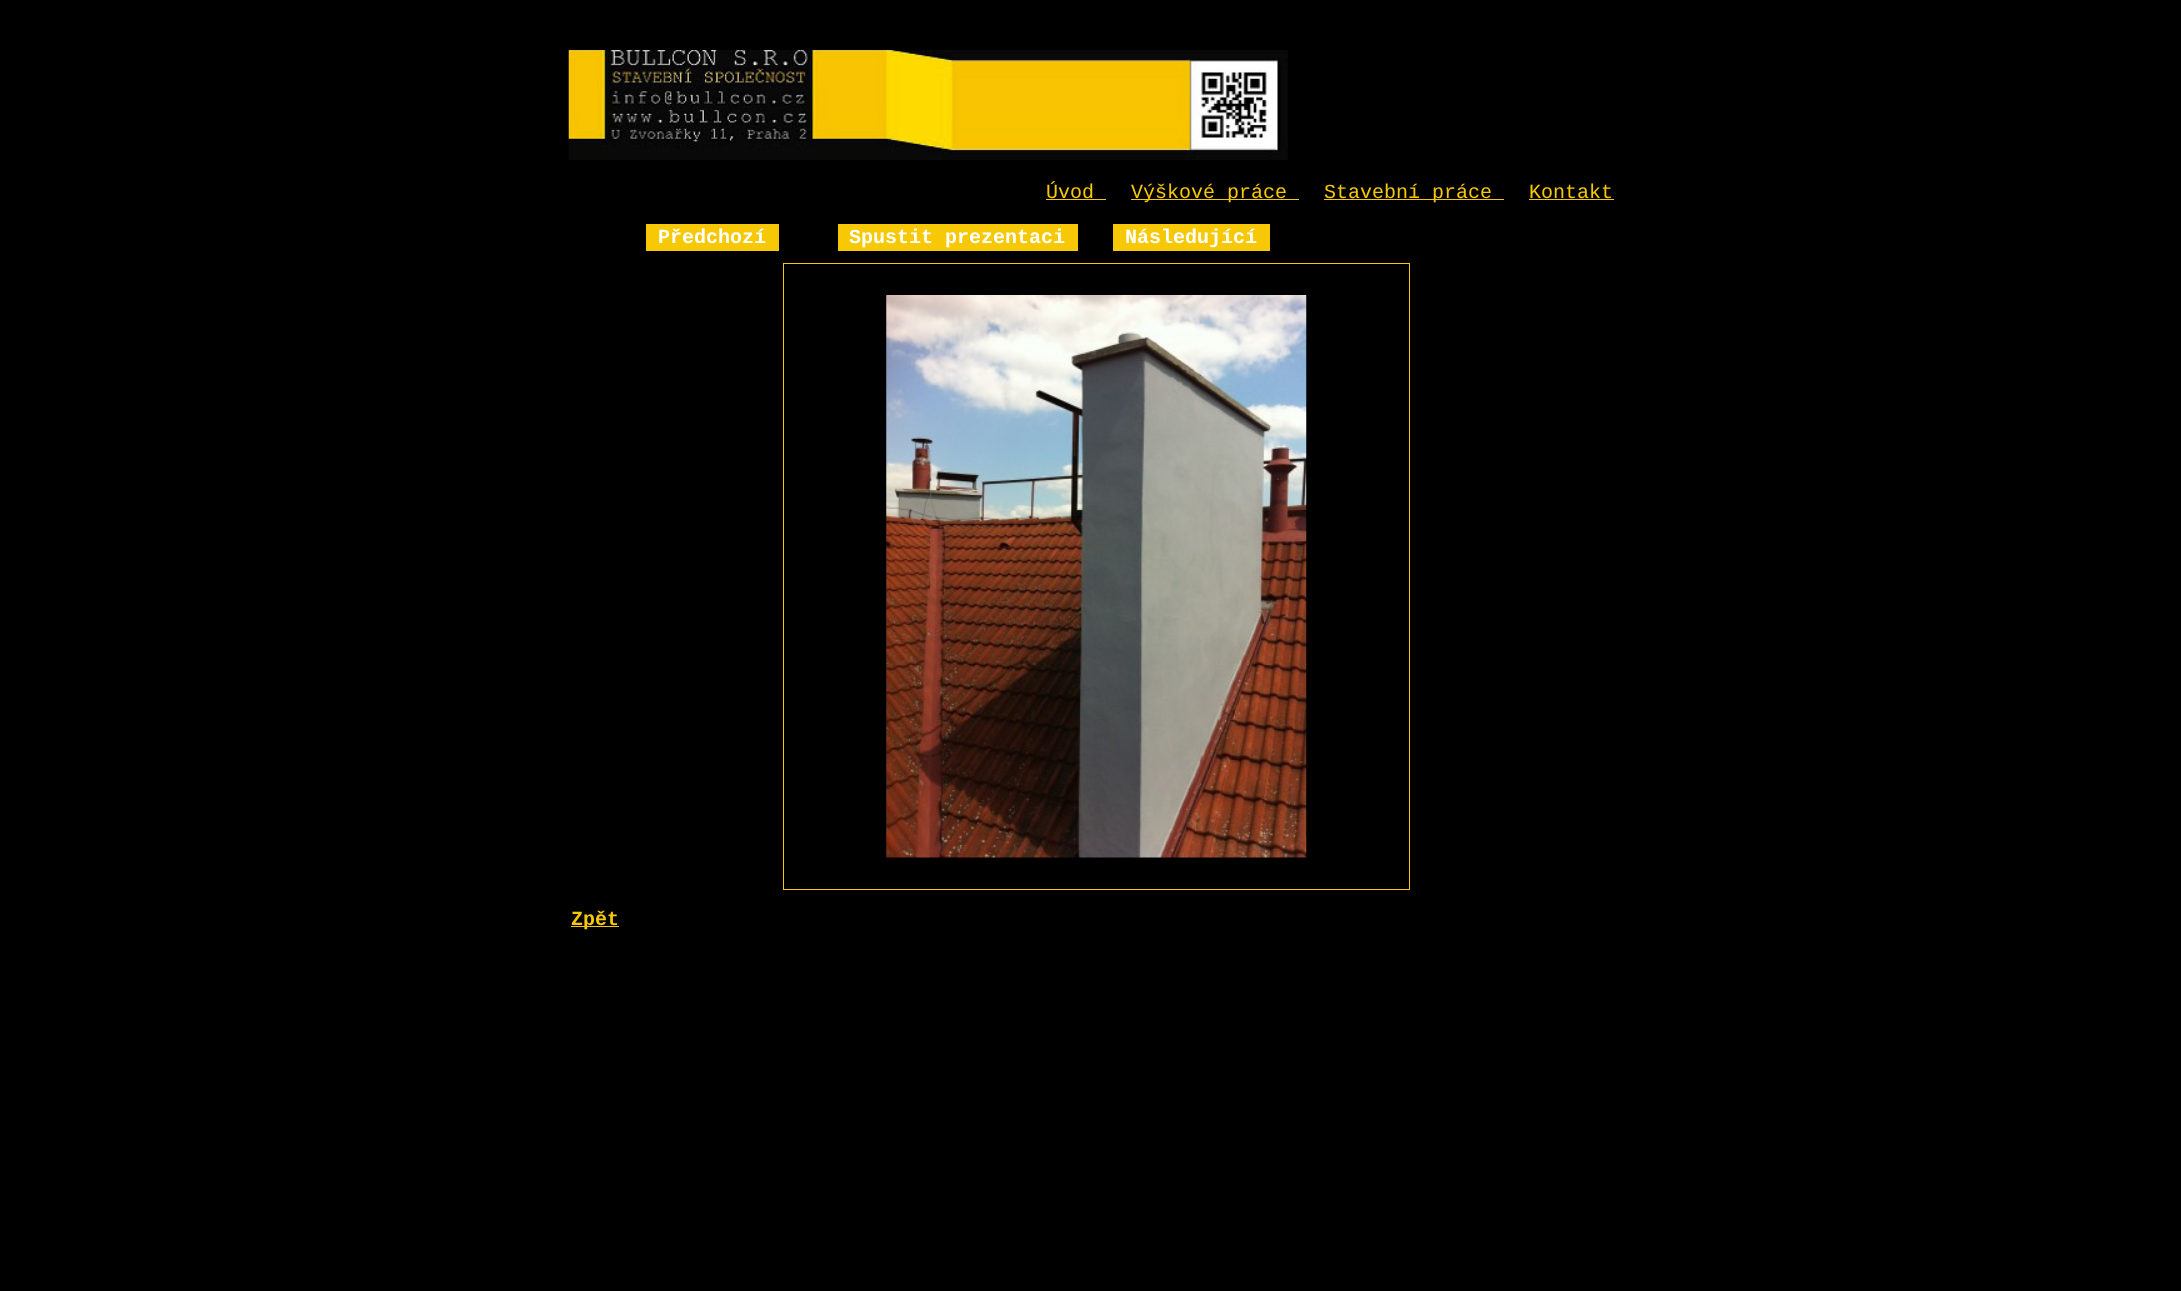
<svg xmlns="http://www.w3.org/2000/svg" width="2181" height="1291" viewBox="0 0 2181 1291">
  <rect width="100%" height="100%" fill="#000000"/>
  <image x="568" y="50" width="720" height="110" href="img1.png"/>
  <text x="1046" y="198" font-family="Liberation Mono" font-size="20" fill="#f7c805">Úvod</text>
  <rect x="1046" y="199" width="60" height="1" fill="#f7c805"/>
  <rect x="1131" y="199" width="168" height="1" fill="#f7c805"/>
  <text x="1131" y="198" font-family="Liberation Mono" font-size="20" fill="#f7c805">Výškové práce</text>
  <rect x="1324" y="199" width="180" height="1" fill="#f7c805"/>
  <text x="1324" y="198" font-family="Liberation Mono" font-size="20" fill="#f7c805">Stavební práce</text>
  <text x="1529" y="198" font-family="Liberation Mono" font-size="20" fill="#f7c805">Kontakt</text>
  <rect x="1529" y="199" width="85" height="1" fill="#f7c805"/>
  <rect x="646" y="224" width="133" height="27" fill="#f7c805"/>
  <text x="658" y="243" font-family="Liberation Mono" font-size="20" font-weight="bold" fill="#ffffff">Předchozí</text>
  <rect x="838" y="224" width="240" height="27" fill="#f7c805"/>
  <text x="849" y="243" font-family="Liberation Mono" font-size="20" font-weight="bold" fill="#ffffff">Spustit prezentaci</text>
  <rect x="1113" y="224" width="157" height="27" fill="#f7c805"/>
  <text x="1125" y="243" font-family="Liberation Mono" font-size="20" font-weight="bold" fill="#ffffff">Následující</text>
  <rect x="783.5" y="263.5" width="626" height="626" fill="none" stroke="#f7c805"/>
  <image x="886" y="295" width="421" height="563" href="img2.png"/>
  <rect x="571" y="926" width="48" height="1" fill="#f7c805"/>
  <text x="571" y="925" font-family="Liberation Mono" font-size="20" font-weight="bold" fill="#f7c805">Zpět</text>
</svg>
